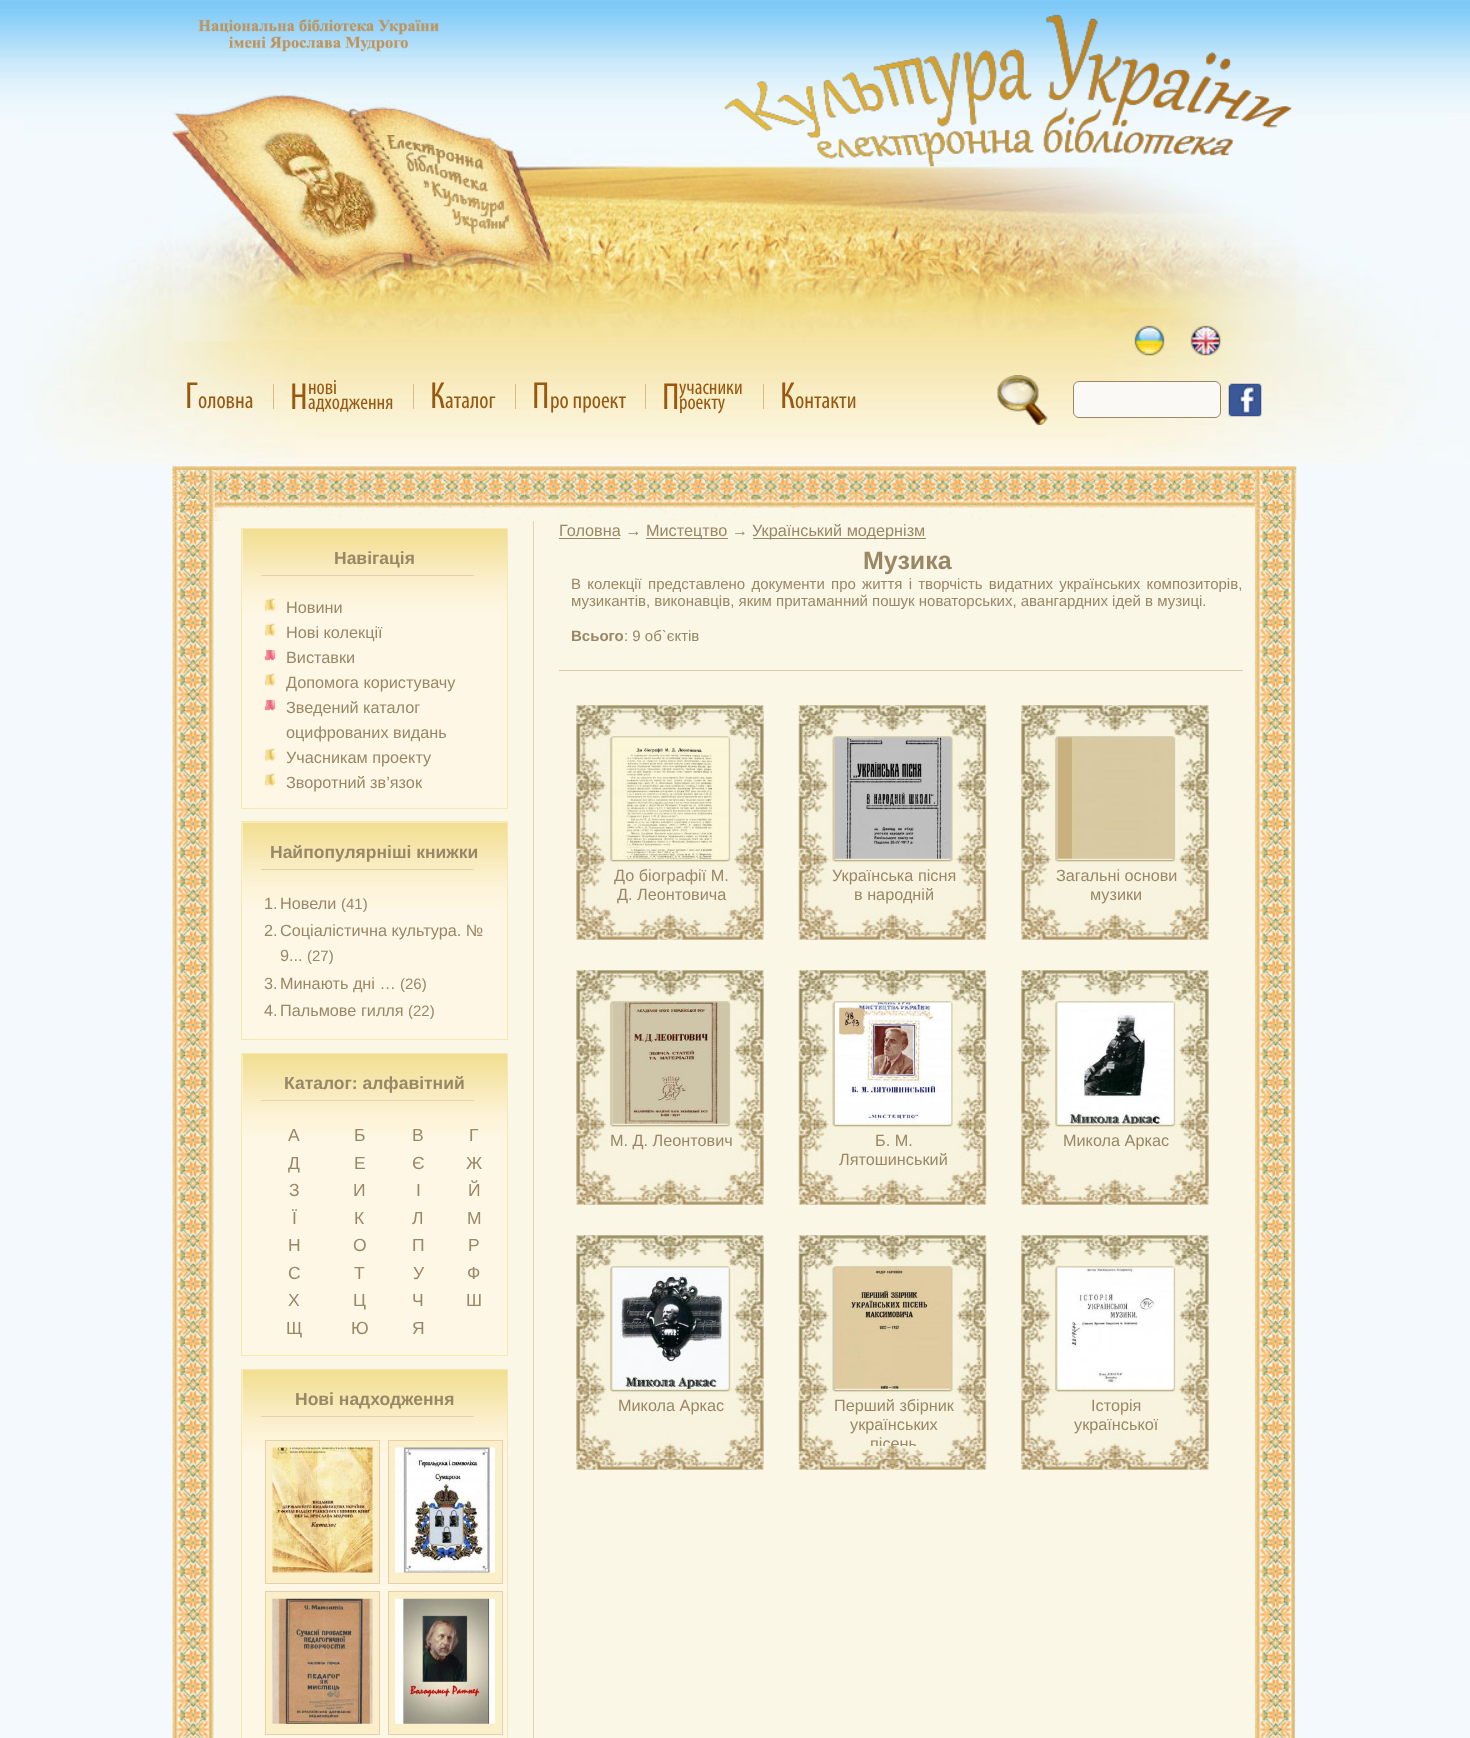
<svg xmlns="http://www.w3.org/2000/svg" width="1470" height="1738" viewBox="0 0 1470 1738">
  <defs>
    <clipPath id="clip1"><rect x="831" y="1396" width="125" height="50"/></clipPath>
  </defs>
  <rect width="100%" height="100%" fill="#f4f9fd"/>
  <image x="0" y="0" width="1470" height="120" href="img1.png"/>
  <image x="25" y="113" width="1445" height="352" href="img2.png"/>
  <image x="172" y="90" width="1124" height="251" href="img3.png"/>
  <image x="198" y="19" width="241" height="33" href="img4.png"/>
  <image x="723" y="14" width="569" height="153" href="img5.png"/>
  <image x="224" y="131" width="155" height="110" href="img6.png"/>
  <image x="386" y="135" width="123" height="99" href="img7.png"/>
  <text x="185" y="408" font-family="Myriad" font-size="38" fill="#995810">Г</text>
  <text x="198" y="408" font-family="Myriad" font-size="24" fill="#995810">оловна</text>
  <rect x="273" y="384" width="1" height="25" fill="#d8bb87"/>
  <text x="290" y="409" font-family="Myriad" font-size="38" fill="#995810">Н</text>
  <text x="308" y="394" font-family="Myriad" font-size="21.25" fill="#995810">нові</text>
  <text x="308" y="409" font-family="Myriad" font-size="21.25" fill="#995810">адходження</text>
  <rect x="413" y="384" width="1" height="25" fill="#d8bb87"/>
  <text x="430" y="408" font-family="Myriad" font-size="38" fill="#995810">К</text>
  <text x="445" y="408" font-family="Myriad" font-size="24" fill="#995810">аталог</text>
  <rect x="515" y="384" width="1" height="25" fill="#d8bb87"/>
  <text x="532" y="408" font-family="Myriad" font-size="38" fill="#995810">П</text>
  <text x="550" y="408" font-family="Myriad" font-size="24" fill="#995810">ро проект</text>
  <rect x="645" y="384" width="1" height="25" fill="#d8bb87"/>
  <text x="662" y="409" font-family="Myriad" font-size="38" fill="#995810">П</text>
  <text x="679" y="394" font-family="Myriad" font-size="21.25" fill="#995810">учасники</text>
  <text x="679" y="409" font-family="Myriad" font-size="21.25" fill="#995810">роекту</text>
  <rect x="763" y="384" width="1" height="25" fill="#d8bb87"/>
  <text x="780" y="408" font-family="Myriad" font-size="38" fill="#995810">К</text>
  <text x="795" y="408" font-family="Myriad" font-size="24" fill="#995810">онтакти</text>
  <image x="1134" y="325" width="31" height="31" href="img8.png"/>
  <image x="1190" y="325" width="32" height="31" href="img9.png"/>
  <image x="997" y="375" width="51" height="50" href="img10.png"/>
  <rect x="1073.5" y="381.5" width="147" height="36" rx="5.5" fill="#faf9f5" stroke="#9a8766"/>
  <image x="1228" y="383" width="34" height="34" href="img11.png"/>
  <image x="172" y="466" width="1125" height="56" href="img12.png"/>
  <image x="172" y="521" width="43" height="1217" href="img13.png"/>
  <rect x="216" y="521" width="317" height="1217" fill="#faf7e6"/>
  <rect x="533" y="521" width="1" height="1217" fill="#e4d1b1"/>
  <rect x="242" y="529" width="265" height="279" fill="#fff7e6"/>
  <image x="242" y="529" width="265" height="83" href="img14.png"/>
  <rect x="241.5" y="528.5" width="266" height="280" fill="none" stroke="#f7e8b3"/>
  <text x="334" y="564" font-family="Liberation Sans" font-size="17.5" font-weight="bold" fill="#9a8766">Навігація</text>
  <rect x="261" y="575" width="213" height="1" fill="#e4d1b1"/>
  <image x="264" y="598" width="12" height="14" href="img15.png"/>
  <text x="286" y="613" font-family="Liberation Sans" font-size="16.25" fill="#9a8766">Новини</text>
  <image x="264" y="623" width="12" height="14" href="img16.png"/>
  <text x="286" y="638" font-family="Liberation Sans" font-size="16.25" fill="#9a8766">Нові колекції</text>
  <image x="264" y="649" width="12" height="12" href="img17.png"/>
  <text x="286" y="663" font-family="Liberation Sans" font-size="16.25" fill="#9a8766">Виставки</text>
  <image x="264" y="673" width="12" height="14" href="img16.png"/>
  <text x="286" y="688" font-family="Liberation Sans" font-size="16.25" fill="#9a8766">Допомога користувачу</text>
  <image x="264" y="699" width="12" height="12" href="img17.png"/>
  <text x="286" y="713" font-family="Liberation Sans" font-size="16.25" fill="#9a8766">Зведений каталог</text>
  <text x="286" y="738" font-family="Liberation Sans" font-size="16.25" fill="#9a8766">оцифрованих видань</text>
  <image x="264" y="748" width="12" height="14" href="img16.png"/>
  <text x="286" y="763" font-family="Liberation Sans" font-size="16.25" fill="#9a8766">Учасникам проекту</text>
  <image x="264" y="773" width="12" height="14" href="img18.png"/>
  <text x="286" y="788" font-family="Liberation Sans" font-size="16.25" fill="#9a8766">Зворотний зв’язок</text>
  <rect x="242" y="822" width="265" height="217" fill="#fff7e6"/>
  <image x="242" y="822" width="265" height="84" href="img19.png"/>
  <rect x="241.5" y="821.5" width="266" height="218" fill="none" stroke="#f7e8b3"/>
  <text x="270" y="858" font-family="Liberation Sans" font-size="17.5" font-weight="bold" fill="#9a8766">Найпопулярніші книжки</text>
  <rect x="261" y="869" width="213" height="1" fill="#e4d1b1"/>
  <text x="264" y="909" font-family="Liberation Sans" font-size="16.25" fill="#9a8766">1.</text>
  <text x="280" y="909" font-family="Liberation Sans" font-size="16.25" fill="#9a8766">Новели</text>
  <text x="341" y="909" font-family="Liberation Sans" font-size="15" fill="#9a8766">(41)</text>
  <text x="264" y="936" font-family="Liberation Sans" font-size="16.25" fill="#9a8766">2.</text>
  <text x="280" y="936" font-family="Liberation Sans" font-size="16.25" fill="#9a8766">Соціалістична культура. №</text>
  <text x="280" y="961" font-family="Liberation Sans" font-size="16.25" fill="#9a8766">9...</text>
  <text x="307" y="961" font-family="Liberation Sans" font-size="15" fill="#9a8766">(27)</text>
  <text x="264" y="989" font-family="Liberation Sans" font-size="16.25" fill="#9a8766">3.</text>
  <text x="280" y="989" font-family="Liberation Sans" font-size="16.25" fill="#9a8766">Минають дні …</text>
  <text x="400" y="989" font-family="Liberation Sans" font-size="15" fill="#9a8766">(26)</text>
  <text x="264" y="1016" font-family="Liberation Sans" font-size="16.25" fill="#9a8766">4.</text>
  <text x="280" y="1016" font-family="Liberation Sans" font-size="16.25" fill="#9a8766">Пальмове гилля</text>
  <text x="408" y="1016" font-family="Liberation Sans" font-size="15" fill="#9a8766">(22)</text>
  <rect x="242" y="1054" width="265" height="301" fill="#fff7e6"/>
  <image x="242" y="1054" width="265" height="83" href="img14.png"/>
  <rect x="241.5" y="1053.5" width="266" height="302" fill="none" stroke="#f7e8b3"/>
  <text x="284" y="1089" font-family="Liberation Sans" font-size="17.5" font-weight="bold" fill="#9a8766">Каталог: алфавітний</text>
  <rect x="261" y="1100" width="213" height="1" fill="#e4d1b1"/>
  <text x="288" y="1141" font-family="Liberation Sans" font-size="17.5" fill="#9a8766">А</text>
  <text x="354" y="1141" font-family="Liberation Sans" font-size="17.5" fill="#9a8766">Б</text>
  <text x="412" y="1141" font-family="Liberation Sans" font-size="17.5" fill="#9a8766">В</text>
  <text x="469" y="1141" font-family="Liberation Sans" font-size="17.5" fill="#9a8766">Г</text>
  <text x="288" y="1169" font-family="Liberation Sans" font-size="17.5" fill="#9a8766">Д</text>
  <text x="354" y="1169" font-family="Liberation Sans" font-size="17.5" fill="#9a8766">Е</text>
  <text x="412" y="1169" font-family="Liberation Sans" font-size="17.5" fill="#9a8766">Є</text>
  <text x="466" y="1169" font-family="Liberation Sans" font-size="17.5" fill="#9a8766">Ж</text>
  <text x="289" y="1196" font-family="Liberation Sans" font-size="17.5" fill="#9a8766">З</text>
  <text x="353" y="1196" font-family="Liberation Sans" font-size="17.5" fill="#9a8766">И</text>
  <text x="416" y="1196" font-family="Liberation Sans" font-size="17.5" fill="#9a8766">І</text>
  <text x="468" y="1196" font-family="Liberation Sans" font-size="17.5" fill="#9a8766">Й</text>
  <text x="292" y="1224" font-family="Liberation Sans" font-size="17.5" fill="#9a8766">Ї</text>
  <text x="354" y="1224" font-family="Liberation Sans" font-size="17.5" fill="#9a8766">К</text>
  <text x="412" y="1224" font-family="Liberation Sans" font-size="17.5" fill="#9a8766">Л</text>
  <text x="467" y="1224" font-family="Liberation Sans" font-size="17.5" fill="#9a8766">М</text>
  <text x="288" y="1251" font-family="Liberation Sans" font-size="17.5" fill="#9a8766">Н</text>
  <text x="353" y="1251" font-family="Liberation Sans" font-size="17.5" fill="#9a8766">О</text>
  <text x="412" y="1251" font-family="Liberation Sans" font-size="17.5" fill="#9a8766">П</text>
  <text x="468" y="1251" font-family="Liberation Sans" font-size="17.5" fill="#9a8766">Р</text>
  <text x="288" y="1279" font-family="Liberation Sans" font-size="17.5" fill="#9a8766">С</text>
  <text x="354" y="1279" font-family="Liberation Sans" font-size="17.5" fill="#9a8766">Т</text>
  <text x="413" y="1279" font-family="Liberation Sans" font-size="17.5" fill="#9a8766">У</text>
  <text x="467" y="1279" font-family="Liberation Sans" font-size="17.5" fill="#9a8766">Ф</text>
  <text x="288" y="1306" font-family="Liberation Sans" font-size="17.5" fill="#9a8766">Х</text>
  <text x="353" y="1306" font-family="Liberation Sans" font-size="17.5" fill="#9a8766">Ц</text>
  <text x="412" y="1306" font-family="Liberation Sans" font-size="17.5" fill="#9a8766">Ч</text>
  <text x="466" y="1306" font-family="Liberation Sans" font-size="17.5" fill="#9a8766">Ш</text>
  <text x="286" y="1334" font-family="Liberation Sans" font-size="17.5" fill="#9a8766">Щ</text>
  <text x="351" y="1334" font-family="Liberation Sans" font-size="17.5" fill="#9a8766">Ю</text>
  <text x="412" y="1334" font-family="Liberation Sans" font-size="17.5" fill="#9a8766">Я</text>
  <rect x="242" y="1370" width="265" height="368" fill="#fff7e6"/>
  <image x="242" y="1370" width="265" height="83" href="img20.png"/>
  <rect x="241.5" y="1369.5" width="266" height="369" fill="none" stroke="#f7e8b3"/>
  <text x="295" y="1405" font-family="Liberation Sans" font-size="17.5" font-weight="bold" fill="#9a8766">Нові надходження</text>
  <rect x="261" y="1416" width="213" height="1" fill="#e4d1b1"/>
  <rect x="265.5" y="1440.5" width="114" height="143" fill="#faefc9" stroke="#e5d0ac"/>
  <image x="272" y="1447" width="101" height="126" href="img21.png"/>
  <rect x="388.5" y="1440.5" width="114" height="143" fill="#faefc9" stroke="#e5d0ac"/>
  <image x="395" y="1447" width="100" height="126" href="img22.png"/>
  <rect x="265.5" y="1591.5" width="114" height="143" fill="#faefc9" stroke="#e5d0ac"/>
  <image x="272" y="1598" width="101" height="126" href="img23.png"/>
  <rect x="388.5" y="1591.5" width="114" height="143" fill="#faefc9" stroke="#e5d0ac"/>
  <image x="395" y="1598" width="100" height="126" href="img24.png"/>
  <rect x="534" y="521" width="721" height="1217" fill="#faf7e6"/>
  <text x="559" y="536" font-family="Liberation Sans" font-size="16.25" fill="#9a8766">Головна →</text>
  <rect x="559" y="538" width="61" height="1" fill="#9a8766"/>
  <rect x="646" y="538" width="82" height="1" fill="#9a8766"/>
  <text x="646" y="536" font-family="Liberation Sans" font-size="16.25" fill="#9a8766">Мистецтво →</text>
  <rect x="753" y="538" width="173" height="1" fill="#9a8766"/>
  <text x="752" y="536" font-family="Liberation Sans" font-size="16.25" fill="#9a8766">Український модернізм</text>
  <rect x="559" y="670" width="684" height="1" fill="#dac7a7"/>
  <text x="863" y="569" font-family="Liberation Sans" font-size="25" font-weight="bold" fill="#9a8766">Музика</text>
  <text x="571" y="589" word-spacing="2.1" font-family="Liberation Sans" font-size="15" fill="#9a8766">В колекції представлено документи про життя і творчість видатних українських композиторів,</text>
  <text x="571" y="606" font-family="Liberation Sans" font-size="15" fill="#9a8766">музикантів, виконавців, яким притаманний пошук новаторських, авангардних ідей в музиці.</text>
  <text x="571" y="641" font-family="Liberation Sans" font-size="15" font-weight="bold" fill="#9a8766">Всього</text>
  <text x="624" y="641" font-family="Liberation Sans" font-size="15" fill="#9a8766">: 9 об`єктів</text>
  <image x="576" y="705" width="188" height="235" href="img25.png"/>
  <image x="612" y="737" width="117" height="122" href="img26.png"/>
  <text x="614" y="881" font-family="Liberation Sans" font-size="16.25" fill="#9a8766">До біографії М.</text>
  <text x="617" y="900" font-family="Liberation Sans" font-size="16.25" fill="#9a8766">Д. Леонтовича</text>
  <image x="798" y="705" width="189" height="235" href="img27.png"/>
  <image x="835" y="737" width="117" height="122" href="img28.png"/>
  <text x="832" y="881" font-family="Liberation Sans" font-size="16.25" fill="#9a8766">Українська пісня</text>
  <text x="854" y="900" font-family="Liberation Sans" font-size="16.25" fill="#9a8766">в народній</text>
  <image x="1021" y="705" width="188" height="235" href="img29.png"/>
  <image x="1057" y="737" width="117" height="122" href="img30.png"/>
  <text x="1056" y="881" font-family="Liberation Sans" font-size="16.25" fill="#9a8766">Загальні основи</text>
  <text x="1090" y="900" font-family="Liberation Sans" font-size="16.25" fill="#9a8766">музики</text>
  <image x="576" y="970" width="188" height="235" href="img25.png"/>
  <image x="612" y="1002" width="117" height="122" href="img31.png"/>
  <text x="610" y="1146" font-family="Liberation Sans" font-size="16.25" fill="#9a8766">М. Д. Леонтович</text>
  <image x="798" y="970" width="189" height="235" href="img27.png"/>
  <image x="835" y="1002" width="117" height="122" href="img32.png"/>
  <text x="875" y="1146" font-family="Liberation Sans" font-size="16.25" fill="#9a8766">Б. М.</text>
  <text x="839" y="1165" font-family="Liberation Sans" font-size="16.25" fill="#9a8766">Лятошинський</text>
  <image x="1021" y="970" width="188" height="235" href="img29.png"/>
  <image x="1057" y="1002" width="117" height="122" href="img33.png"/>
  <text x="1063" y="1146" font-family="Liberation Sans" font-size="16.25" fill="#9a8766">Микола Аркас</text>
  <image x="576" y="1235" width="188" height="235" href="img25.png"/>
  <image x="612" y="1267" width="117" height="122" href="img34.png"/>
  <text x="618" y="1411" font-family="Liberation Sans" font-size="16.25" fill="#9a8766">Микола Аркас</text>
  <image x="798" y="1235" width="189" height="235" href="img27.png"/>
  <image x="835" y="1267" width="117" height="122" href="img35.png"/>
  <text x="834" y="1411" font-family="Liberation Sans" font-size="16.25" fill="#9a8766">Перший збірник</text>
  <text x="850" y="1430" font-family="Liberation Sans" font-size="16.25" fill="#9a8766">українських</text>
  <g clip-path="url(#clip1)">
    <text x="870" y="1449" font-family="Liberation Sans" font-size="16.25" fill="#9a8766">пісень</text>
  </g>
  <image x="1021" y="1235" width="188" height="235" href="img29.png"/>
  <image x="1057" y="1267" width="117" height="122" href="img36.png"/>
  <text x="1091" y="1411" font-family="Liberation Sans" font-size="16.25" fill="#9a8766">Історія</text>
  <text x="1074" y="1430" font-family="Liberation Sans" font-size="16.25" fill="#9a8766">української</text>
  <image x="1255" y="521" width="40" height="1217" href="img37.png"/>
</svg>
